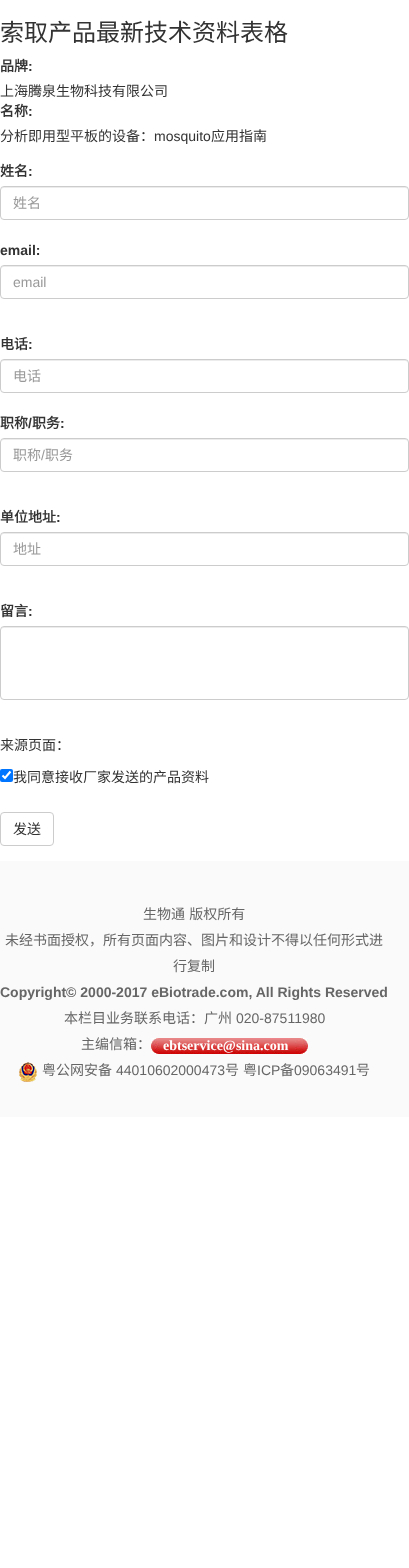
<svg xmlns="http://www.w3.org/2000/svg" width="409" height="1568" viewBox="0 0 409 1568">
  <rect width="100%" height="100%" fill="#ffffff"/>
  <text x="0" y="41" font-family="Noto Sans CJK SC" font-size="24" fill="#333333">索取产品最新技术资料表格</text>
  <text x="0" y="71" font-family="Noto Sans CJK SC" font-size="14" font-weight="bold" fill="#333333">品牌</text>
  <text x="28" y="71" font-family="Liberation Sans" font-size="14" font-weight="bold" fill="#333333">:</text>
  <text x="0" y="96" font-family="Noto Sans CJK SC" font-size="14" fill="#333333">上海腾泉生物科技有限公司</text>
  <text x="0" y="116" font-family="Noto Sans CJK SC" font-size="14" font-weight="bold" fill="#333333">名称</text>
  <text x="28" y="116" font-family="Liberation Sans" font-size="14" font-weight="bold" fill="#333333">:</text>
  <text x="0" y="141" font-family="Noto Sans CJK SC" font-size="14" fill="#333333">分析即用型平板的设备：</text>
  <text x="154" y="141" font-family="Liberation Sans" font-size="14" fill="#333333">mosquito</text>
  <text x="211" y="141" font-family="Noto Sans CJK SC" font-size="14" fill="#333333">应用指南</text>
  <text x="0" y="176" font-family="Noto Sans CJK SC" font-size="14" font-weight="bold" fill="#333333">姓名</text>
  <text x="28" y="176" font-family="Liberation Sans" font-size="14" font-weight="bold" fill="#333333">:</text>
  <path d="M4 188H405C407 188 408 189 408 191C408 189 407 187 405 187H4C2 187 1 189 1 191C1 189 2 188 4 188Z" fill="#ececec"/>
  <rect x="0.5" y="186.5" width="408" height="33" rx="3.5" fill="none" stroke="#cccccc"/>
  <text x="13" y="208" font-family="Noto Sans CJK SC" font-size="14" fill="#999999">姓名</text>
  <text x="0" y="255" font-family="Liberation Sans" font-size="14" font-weight="bold" fill="#333333">email:</text>
  <path d="M4 267H405C407 267 408 268 408 270C408 268 407 266 405 266H4C2 266 1 268 1 270C1 268 2 267 4 267Z" fill="#ececec"/>
  <rect x="0.5" y="265.5" width="408" height="33" rx="3.5" fill="none" stroke="#cccccc"/>
  <text x="13" y="287" font-family="Liberation Sans" font-size="14" fill="#999999">email</text>
  <text x="0" y="349" font-family="Noto Sans CJK SC" font-size="14" font-weight="bold" fill="#333333">电话</text>
  <text x="28" y="349" font-family="Liberation Sans" font-size="14" font-weight="bold" fill="#333333">:</text>
  <path d="M4 361H405C407 361 408 362 408 364C408 362 407 360 405 360H4C2 360 1 362 1 364C1 362 2 361 4 361Z" fill="#ececec"/>
  <rect x="0.5" y="359.5" width="408" height="33" rx="3.5" fill="none" stroke="#cccccc"/>
  <text x="13" y="381" font-family="Noto Sans CJK SC" font-size="14" fill="#999999">电话</text>
  <text x="0" y="428" font-family="Noto Sans CJK SC" font-size="14" font-weight="bold" fill="#333333">职称</text>
  <text x="28" y="428" font-family="Liberation Sans" font-size="14" font-weight="bold" fill="#333333">/</text>
  <text x="32" y="428" font-family="Noto Sans CJK SC" font-size="14" font-weight="bold" fill="#333333">职务</text>
  <text x="60" y="428" font-family="Liberation Sans" font-size="14" font-weight="bold" fill="#333333">:</text>
  <path d="M4 440H405C407 440 408 441 408 443C408 441 407 439 405 439H4C2 439 1 441 1 443C1 441 2 440 4 440Z" fill="#ececec"/>
  <rect x="0.5" y="438.5" width="408" height="33" rx="3.5" fill="none" stroke="#cccccc"/>
  <text x="13" y="460" font-family="Noto Sans CJK SC" font-size="14" fill="#999999">职称</text>
  <text x="41" y="460" font-family="Liberation Sans" font-size="14" fill="#999999">/</text>
  <text x="45" y="460" font-family="Noto Sans CJK SC" font-size="14" fill="#999999">职务</text>
  <text x="0" y="522" font-family="Noto Sans CJK SC" font-size="14" font-weight="bold" fill="#333333">单位地址</text>
  <text x="56" y="522" font-family="Liberation Sans" font-size="14" font-weight="bold" fill="#333333">:</text>
  <path d="M4 534H405C407 534 408 535 408 537C408 535 407 533 405 533H4C2 533 1 535 1 537C1 535 2 534 4 534Z" fill="#ececec"/>
  <rect x="0.5" y="532.5" width="408" height="33" rx="3.5" fill="none" stroke="#cccccc"/>
  <text x="13" y="554" font-family="Noto Sans CJK SC" font-size="14" fill="#999999">地址</text>
  <text x="0" y="616" font-family="Noto Sans CJK SC" font-size="14" font-weight="bold" fill="#333333">留言</text>
  <text x="28" y="616" font-family="Liberation Sans" font-size="14" font-weight="bold" fill="#333333">:</text>
  <path d="M4 628H405C407 628 408 629 408 631C408 629 407 627 405 627H4C2 627 1 629 1 631C1 629 2 628 4 628Z" fill="#ececec"/>
  <rect x="0.5" y="626.5" width="408" height="73" rx="3.5" fill="none" stroke="#cccccc"/>
  <text x="0" y="750" font-family="Noto Sans CJK SC" font-size="14" fill="#333333">来源页面：</text>
  <rect x="0" y="769" width="13" height="13" rx="2" fill="#0075ff"/>
  <path d="M2.5 775.5L5 778L10.5 771.5" fill="none" stroke="#ffffff" stroke-width="2.1"/>
  <text x="13" y="782" font-family="Noto Sans CJK SC" font-size="14" fill="#333333">我同意接收厂家发送的产品资料</text>
  <rect x="0.5" y="812.5" width="53" height="33" rx="3.5" fill="none" stroke="#cccccc"/>
  <text x="13" y="834" font-family="Noto Sans CJK SC" font-size="14" fill="#333333">发送</text>
  <rect x="0" y="861" width="409" height="256" fill="#fafafa"/>
  <text x="143" y="919" word-spacing="1" font-family="Noto Sans CJK SC" font-size="14" fill="#666666">生物通 版权所有</text>
  <text x="5" y="945" font-family="Noto Sans CJK SC" font-size="14" fill="#666666">未经书面授权，所有页面内容、图片和设计不得以任何形式进</text>
  <text x="173" y="971" font-family="Noto Sans CJK SC" font-size="14" fill="#666666">行复制</text>
  <text x="0" y="997" font-family="Liberation Sans" font-size="14" font-weight="bold" fill="#666666">Copyright© 2000-2017 eBiotrade.com, All Rights Reserved</text>
  <text x="64" y="1023" font-family="Noto Sans CJK SC" font-size="14" fill="#666666">本栏目业务联系电话：广州</text>
  <text x="236" y="1023" font-family="Liberation Sans" font-size="14" fill="#666666">020-87511980</text>
  <text x="81" y="1049" font-family="Noto Sans CJK SC" font-size="14" fill="#666666">主编信箱：</text>
  <image x="151" y="1038" width="157" height="16" href="img1.png"/>
  <text x="163" y="1050" font-family="Liberation Serif" font-size="14" font-weight="bold" fill="#ffffff">ebtservice@sina.com</text>
  <image x="19" y="1062" width="18" height="20" href="img2.png"/>
  <text x="42" y="1075" font-family="Noto Sans CJK SC" font-size="14" fill="#666666">粤公网安备</text>
  <text x="116" y="1075" font-family="Liberation Sans" font-size="14" fill="#666666">44010602000473</text>
  <text x="225" y="1075" font-family="Noto Sans CJK SC" font-size="14" fill="#666666">号</text>
  <text x="243" y="1075" font-family="Noto Sans CJK SC" font-size="14" fill="#666666">粤</text>
  <text x="257" y="1075" font-family="Liberation Sans" font-size="14" fill="#666666">ICP</text>
  <text x="280" y="1075" font-family="Noto Sans CJK SC" font-size="14" fill="#666666">备</text>
  <text x="294" y="1075" font-family="Liberation Sans" font-size="14" fill="#666666">09063491</text>
  <text x="356" y="1075" font-family="Noto Sans CJK SC" font-size="14" fill="#666666">号</text>
</svg>
